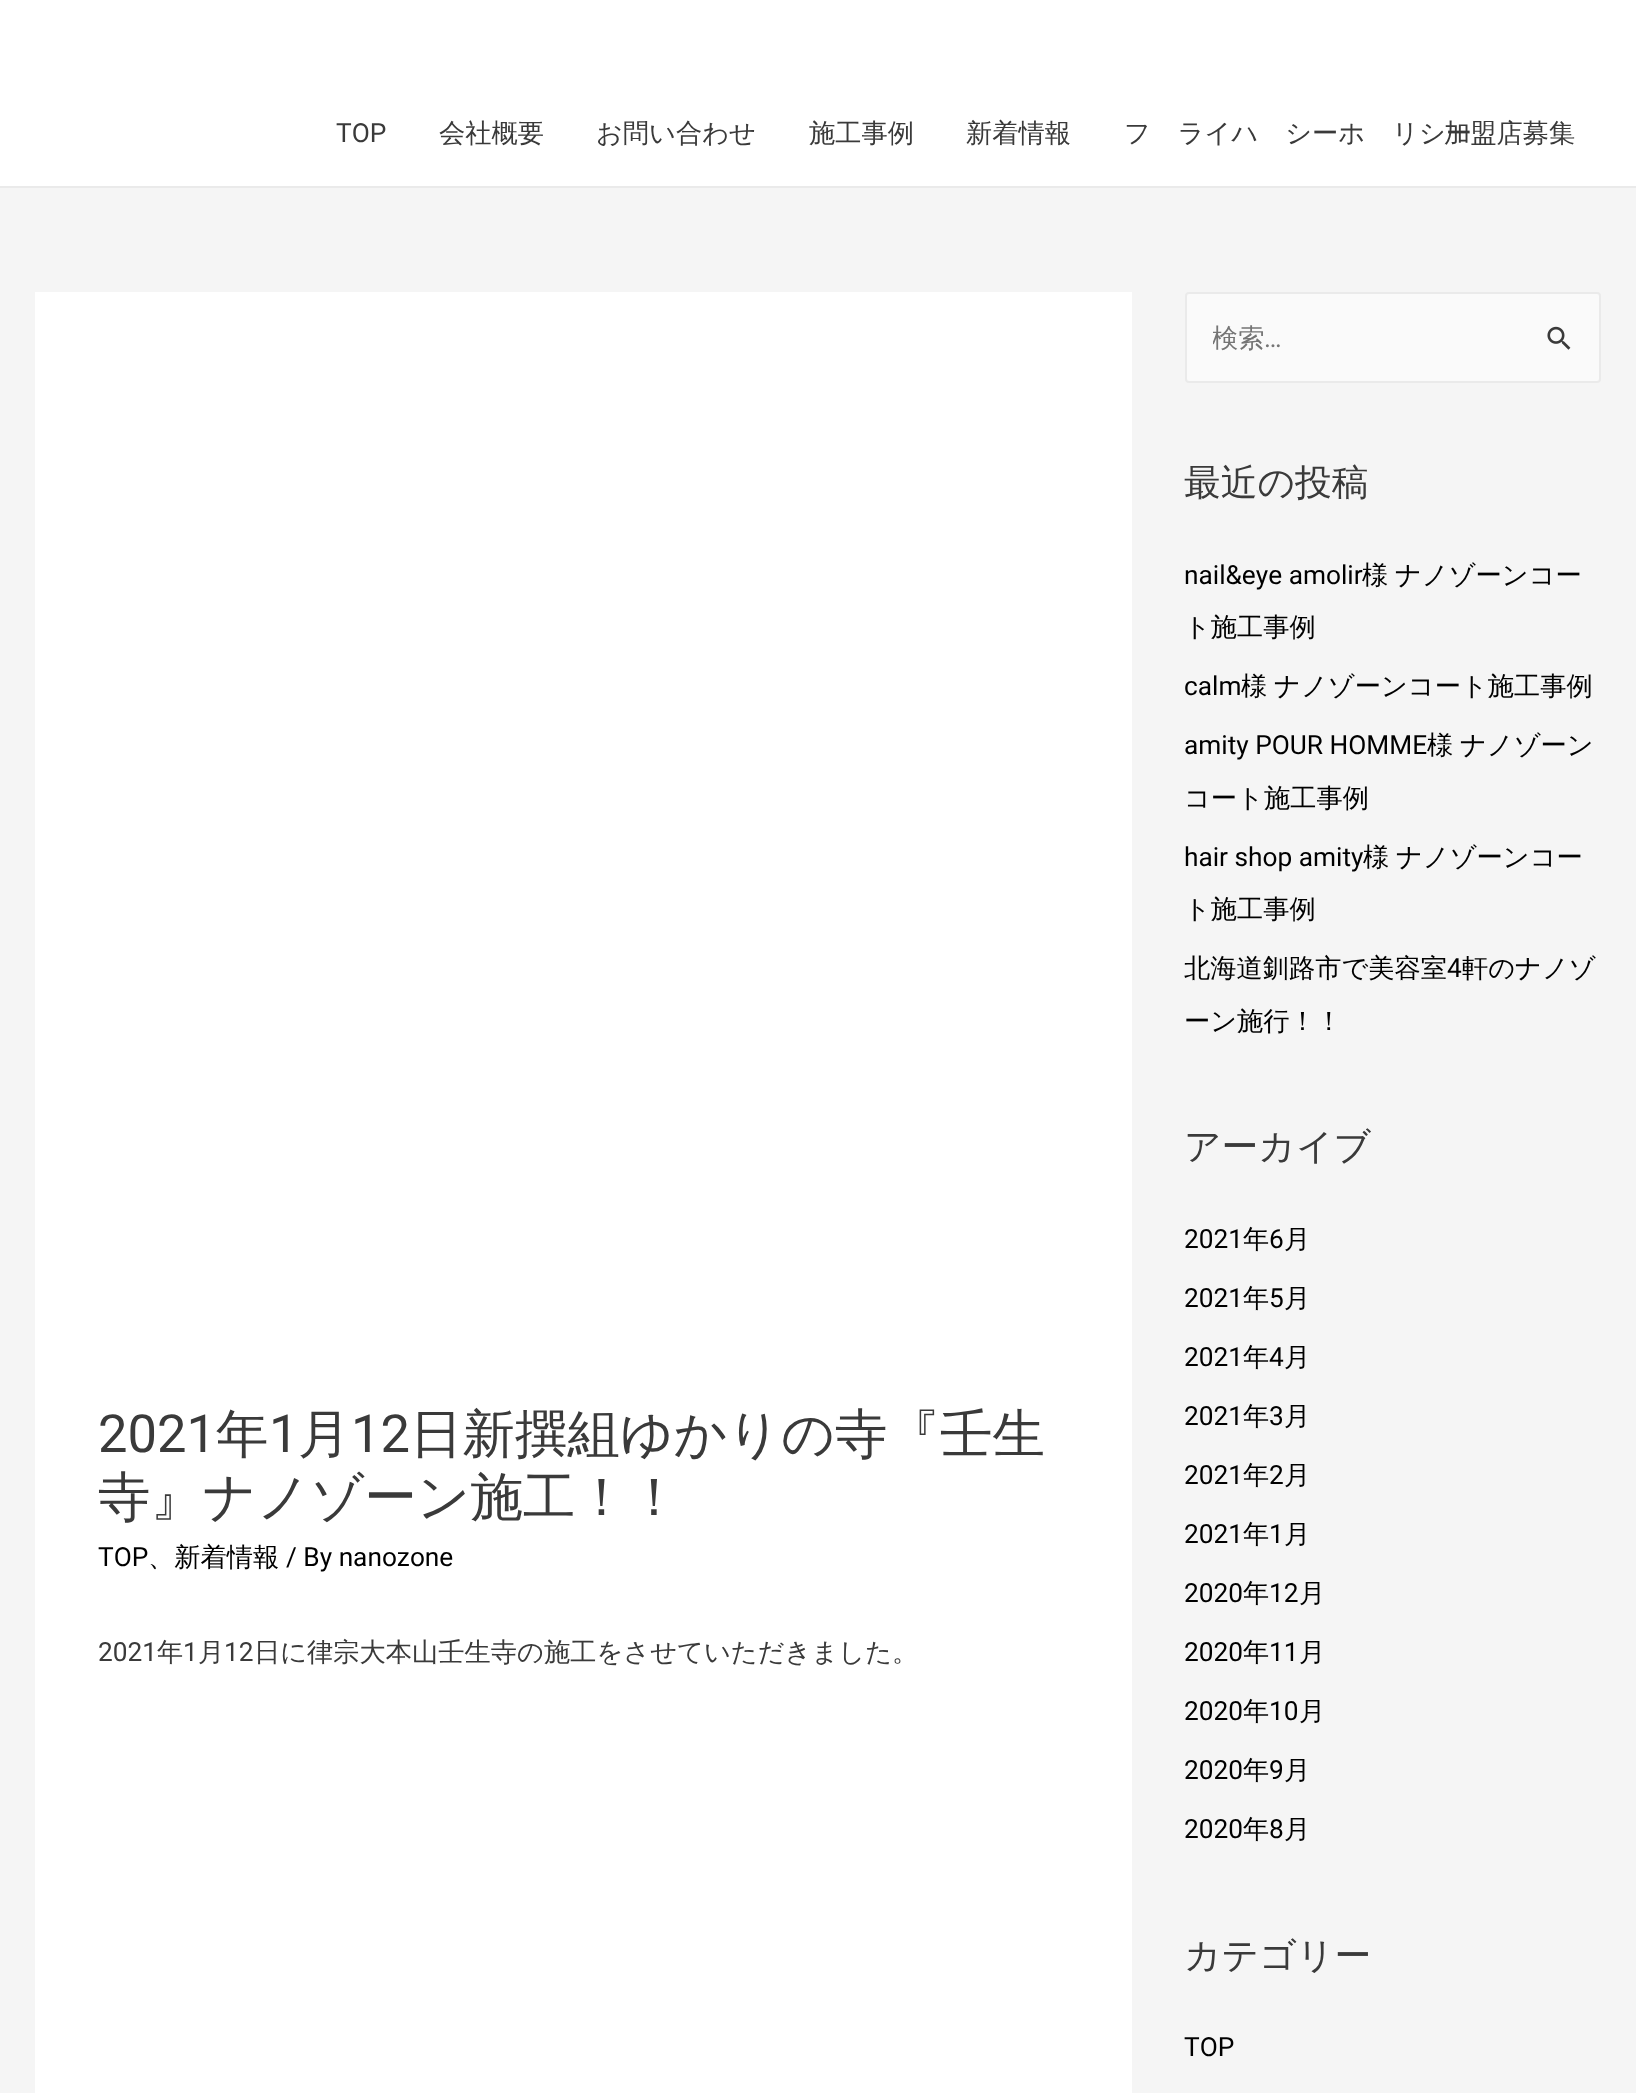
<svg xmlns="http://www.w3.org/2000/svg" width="1636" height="2093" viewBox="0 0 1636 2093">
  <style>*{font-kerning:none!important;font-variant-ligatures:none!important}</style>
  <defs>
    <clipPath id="clip1"><rect x="1213" y="322" width="301" height="33"/></clipPath>
  </defs>
  <rect width="100%" height="100%" fill="#f5f5f5"/>
  <rect x="0" y="0" width="1636" height="186" fill="#ffffff"/>
  <rect x="0" y="186" width="1636" height="2" fill="#eaeaea"/>
  <text x="336" y="142" font-family="Roboto" font-size="26.25" fill="#3a3a3a">TOP</text>
  <text x="439" y="142" font-family="WenQuanYi Zen Hei" font-size="26.25" font-weight="500" fill="#3a3a3a">会社概要</text>
  <text x="596" y="142" font-family="WenQuanYi Zen Hei" font-size="26.25" font-weight="500" fill="#3a3a3a">お問い合わせ</text>
  <text x="809" y="142" font-family="WenQuanYi Zen Hei" font-size="26.25" font-weight="500" fill="#3a3a3a">施工事例</text>
  <text x="966" y="142" font-family="WenQuanYi Zen Hei" font-size="26.25" font-weight="500" fill="#3a3a3a">新着情報</text>
  <text x="1124" y="142" font-family="WenQuanYi Zen Hei" font-size="26.25" font-weight="500" fill="#3a3a3a">プライバシーポリシー</text>
  <text x="1444" y="142" font-family="WenQuanYi Zen Hei" font-size="26.25" font-weight="500" fill="#3a3a3a">加盟店募集</text>
  <rect x="35" y="292" width="1097" height="1801" fill="#ffffff"/>
  <text x="98" y="1452" font-family="Roboto" font-size="52.5" fill="#3a3a3a">2021</text>
  <text x="216" y="1452" font-family="WenQuanYi Zen Hei" font-size="52.5" font-weight="500" fill="#3a3a3a">年</text>
  <text x="269" y="1452" font-family="Roboto" font-size="52.5" fill="#3a3a3a">1</text>
  <text x="298" y="1452" font-family="WenQuanYi Zen Hei" font-size="52.5" font-weight="500" fill="#3a3a3a">月</text>
  <text x="351" y="1452" font-family="Roboto" font-size="52.5" fill="#3a3a3a">12</text>
  <text x="410" y="1452" font-family="WenQuanYi Zen Hei" font-size="52.5" font-weight="500" fill="#3a3a3a">日新撰組ゆかりの寺『壬生</text>
  <text x="98" y="1515" font-family="WenQuanYi Zen Hei" font-size="52.5" font-weight="500" fill="#3a3a3a">寺』ナノゾーン施工！！</text>
  <text x="98" y="1566" font-family="Roboto" font-size="26.25" fill="#000000">TOP</text>
  <text x="148" y="1566" font-family="WenQuanYi Zen Hei" font-size="26.25" font-weight="500" fill="#000000">、新着情報</text>
  <text x="286" y="1566" font-family="Roboto" font-size="26.25" fill="#000000">/ By nanozone</text>
  <text x="98" y="1661" font-family="Roboto" font-size="26.25" fill="#3a3a3a">2021</text>
  <text x="157" y="1661" font-family="WenQuanYi Zen Hei" font-size="26.25" font-weight="500" fill="#3a3a3a">年</text>
  <text x="183" y="1661" font-family="Roboto" font-size="26.25" fill="#3a3a3a">1</text>
  <text x="198" y="1661" font-family="WenQuanYi Zen Hei" font-size="26.25" font-weight="500" fill="#3a3a3a">月</text>
  <text x="224" y="1661" font-family="Roboto" font-size="26.25" fill="#3a3a3a">12</text>
  <text x="254" y="1661" font-family="WenQuanYi Zen Hei" font-size="26.25" font-weight="500" fill="#3a3a3a">日に律宗大本山壬生寺の施工をさせていただきました。</text>
  <rect x="1186" y="293" width="414" height="89" rx="3" fill="#fafafa" stroke="#eaeaea" stroke-width="2"/>
  <g clip-path="url(#clip1)">
    <text x="1212" y="347" font-family="WenQuanYi Zen Hei" font-size="26.25" font-weight="500" fill="#757575">検索</text>
  </g>
  <text x="1264" y="347" font-family="Roboto" font-size="26.25" fill="#757575">…</text>
  <image x="1547" y="326" width="24" height="24" href="img1.png"/>
  <text x="1184" y="495" font-family="WenQuanYi Zen Hei" font-size="36.75" font-weight="500" fill="#3a3a3a">最近の投稿</text>
  <text x="1184" y="584" font-family="Roboto" font-size="26.25" fill="#000000">nail&amp;eye amolir</text>
  <text x="1362" y="584" font-family="WenQuanYi Zen Hei" font-size="26.25" font-weight="500" fill="#000000">様</text>
  <text x="1395" y="584" font-family="WenQuanYi Zen Hei" font-size="26.25" font-weight="500" fill="#000000">ナノゾーンコー</text>
  <text x="1184" y="636" font-family="WenQuanYi Zen Hei" font-size="26.25" font-weight="500" fill="#000000">ト施工事例</text>
  <text x="1184" y="695" font-family="Roboto" font-size="26.25" fill="#000000">calm</text>
  <text x="1241" y="695" word-spacing="-1" font-family="WenQuanYi Zen Hei" font-size="26.25" font-weight="500" fill="#000000">様 ナノゾーンコート施工事例</text>
  <text x="1184" y="754" font-family="Roboto" font-size="26.25" fill="#000000">amity POUR HOMME</text>
  <text x="1427" y="754" font-family="WenQuanYi Zen Hei" font-size="26.25" font-weight="500" fill="#000000">様</text>
  <text x="1460" y="754" font-family="WenQuanYi Zen Hei" font-size="26.25" font-weight="500" fill="#000000">ナノゾーン</text>
  <text x="1184" y="807" font-family="WenQuanYi Zen Hei" font-size="26.25" font-weight="500" fill="#000000">コート施工事例</text>
  <text x="1184" y="866" font-family="Roboto" font-size="26.25" fill="#000000">hair shop amity</text>
  <text x="1363" y="866" font-family="WenQuanYi Zen Hei" font-size="26.25" font-weight="500" fill="#000000">様</text>
  <text x="1396" y="866" font-family="WenQuanYi Zen Hei" font-size="26.25" font-weight="500" fill="#000000">ナノゾーンコー</text>
  <text x="1184" y="918" font-family="WenQuanYi Zen Hei" font-size="26.25" font-weight="500" fill="#000000">ト施工事例</text>
  <text x="1184" y="977" font-family="WenQuanYi Zen Hei" font-size="26.25" font-weight="500" fill="#000000">北海道釧路市で美容室</text>
  <text x="1447" y="977" font-family="Roboto" font-size="26.25" fill="#000000">4</text>
  <text x="1462" y="977" font-family="WenQuanYi Zen Hei" font-size="26.25" font-weight="500" fill="#000000">軒のナノゾ</text>
  <text x="1184" y="1030" font-family="WenQuanYi Zen Hei" font-size="26.25" font-weight="500" fill="#000000">ーン施行！！</text>
  <text x="1184" y="1159" font-family="WenQuanYi Zen Hei" font-size="36.75" font-weight="500" fill="#3a3a3a">アーカイブ</text>
  <text x="1184" y="1248" font-family="Roboto" font-size="26.25" fill="#000000">2021</text>
  <text x="1243" y="1248" font-family="WenQuanYi Zen Hei" font-size="26.25" font-weight="500" fill="#000000">年</text>
  <text x="1269" y="1248" font-family="Roboto" font-size="26.25" fill="#000000">6</text>
  <text x="1284" y="1248" font-family="WenQuanYi Zen Hei" font-size="26.25" font-weight="500" fill="#000000">月</text>
  <text x="1184" y="1307" font-family="Roboto" font-size="26.25" fill="#000000">2021</text>
  <text x="1243" y="1307" font-family="WenQuanYi Zen Hei" font-size="26.25" font-weight="500" fill="#000000">年</text>
  <text x="1269" y="1307" font-family="Roboto" font-size="26.25" fill="#000000">5</text>
  <text x="1284" y="1307" font-family="WenQuanYi Zen Hei" font-size="26.25" font-weight="500" fill="#000000">月</text>
  <text x="1184" y="1366" font-family="Roboto" font-size="26.25" fill="#000000">2021</text>
  <text x="1243" y="1366" font-family="WenQuanYi Zen Hei" font-size="26.25" font-weight="500" fill="#000000">年</text>
  <text x="1269" y="1366" font-family="Roboto" font-size="26.25" fill="#000000">4</text>
  <text x="1284" y="1366" font-family="WenQuanYi Zen Hei" font-size="26.25" font-weight="500" fill="#000000">月</text>
  <text x="1184" y="1425" font-family="Roboto" font-size="26.25" fill="#000000">2021</text>
  <text x="1243" y="1425" font-family="WenQuanYi Zen Hei" font-size="26.25" font-weight="500" fill="#000000">年</text>
  <text x="1269" y="1425" font-family="Roboto" font-size="26.25" fill="#000000">3</text>
  <text x="1284" y="1425" font-family="WenQuanYi Zen Hei" font-size="26.25" font-weight="500" fill="#000000">月</text>
  <text x="1184" y="1484" font-family="Roboto" font-size="26.25" fill="#000000">2021</text>
  <text x="1243" y="1484" font-family="WenQuanYi Zen Hei" font-size="26.25" font-weight="500" fill="#000000">年</text>
  <text x="1269" y="1484" font-family="Roboto" font-size="26.25" fill="#000000">2</text>
  <text x="1284" y="1484" font-family="WenQuanYi Zen Hei" font-size="26.25" font-weight="500" fill="#000000">月</text>
  <text x="1184" y="1543" font-family="Roboto" font-size="26.25" fill="#000000">2021</text>
  <text x="1243" y="1543" font-family="WenQuanYi Zen Hei" font-size="26.25" font-weight="500" fill="#000000">年</text>
  <text x="1269" y="1543" font-family="Roboto" font-size="26.25" fill="#000000">1</text>
  <text x="1284" y="1543" font-family="WenQuanYi Zen Hei" font-size="26.25" font-weight="500" fill="#000000">月</text>
  <text x="1184" y="1602" font-family="Roboto" font-size="26.25" fill="#000000">2020</text>
  <text x="1243" y="1602" font-family="WenQuanYi Zen Hei" font-size="26.25" font-weight="500" fill="#000000">年</text>
  <text x="1269" y="1602" font-family="Roboto" font-size="26.25" fill="#000000">12</text>
  <text x="1299" y="1602" font-family="WenQuanYi Zen Hei" font-size="26.25" font-weight="500" fill="#000000">月</text>
  <text x="1184" y="1661" font-family="Roboto" font-size="26.25" fill="#000000">2020</text>
  <text x="1243" y="1661" font-family="WenQuanYi Zen Hei" font-size="26.25" font-weight="500" fill="#000000">年</text>
  <text x="1269" y="1661" font-family="Roboto" font-size="26.25" fill="#000000">11</text>
  <text x="1299" y="1661" font-family="WenQuanYi Zen Hei" font-size="26.25" font-weight="500" fill="#000000">月</text>
  <text x="1184" y="1720" font-family="Roboto" font-size="26.25" fill="#000000">2020</text>
  <text x="1243" y="1720" font-family="WenQuanYi Zen Hei" font-size="26.25" font-weight="500" fill="#000000">年</text>
  <text x="1269" y="1720" font-family="Roboto" font-size="26.25" fill="#000000">10</text>
  <text x="1299" y="1720" font-family="WenQuanYi Zen Hei" font-size="26.25" font-weight="500" fill="#000000">月</text>
  <text x="1184" y="1779" font-family="Roboto" font-size="26.25" fill="#000000">2020</text>
  <text x="1243" y="1779" font-family="WenQuanYi Zen Hei" font-size="26.25" font-weight="500" fill="#000000">年</text>
  <text x="1269" y="1779" font-family="Roboto" font-size="26.25" fill="#000000">9</text>
  <text x="1284" y="1779" font-family="WenQuanYi Zen Hei" font-size="26.25" font-weight="500" fill="#000000">月</text>
  <text x="1184" y="1838" font-family="Roboto" font-size="26.25" fill="#000000">2020</text>
  <text x="1243" y="1838" font-family="WenQuanYi Zen Hei" font-size="26.25" font-weight="500" fill="#000000">年</text>
  <text x="1269" y="1838" font-family="Roboto" font-size="26.25" fill="#000000">8</text>
  <text x="1284" y="1838" font-family="WenQuanYi Zen Hei" font-size="26.25" font-weight="500" fill="#000000">月</text>
  <text x="1184" y="1968" font-family="WenQuanYi Zen Hei" font-size="36.75" font-weight="500" fill="#3a3a3a">カテゴリー</text>
  <text x="1184" y="2056" font-family="Roboto" font-size="26.25" fill="#000000">TOP</text>
</svg>
